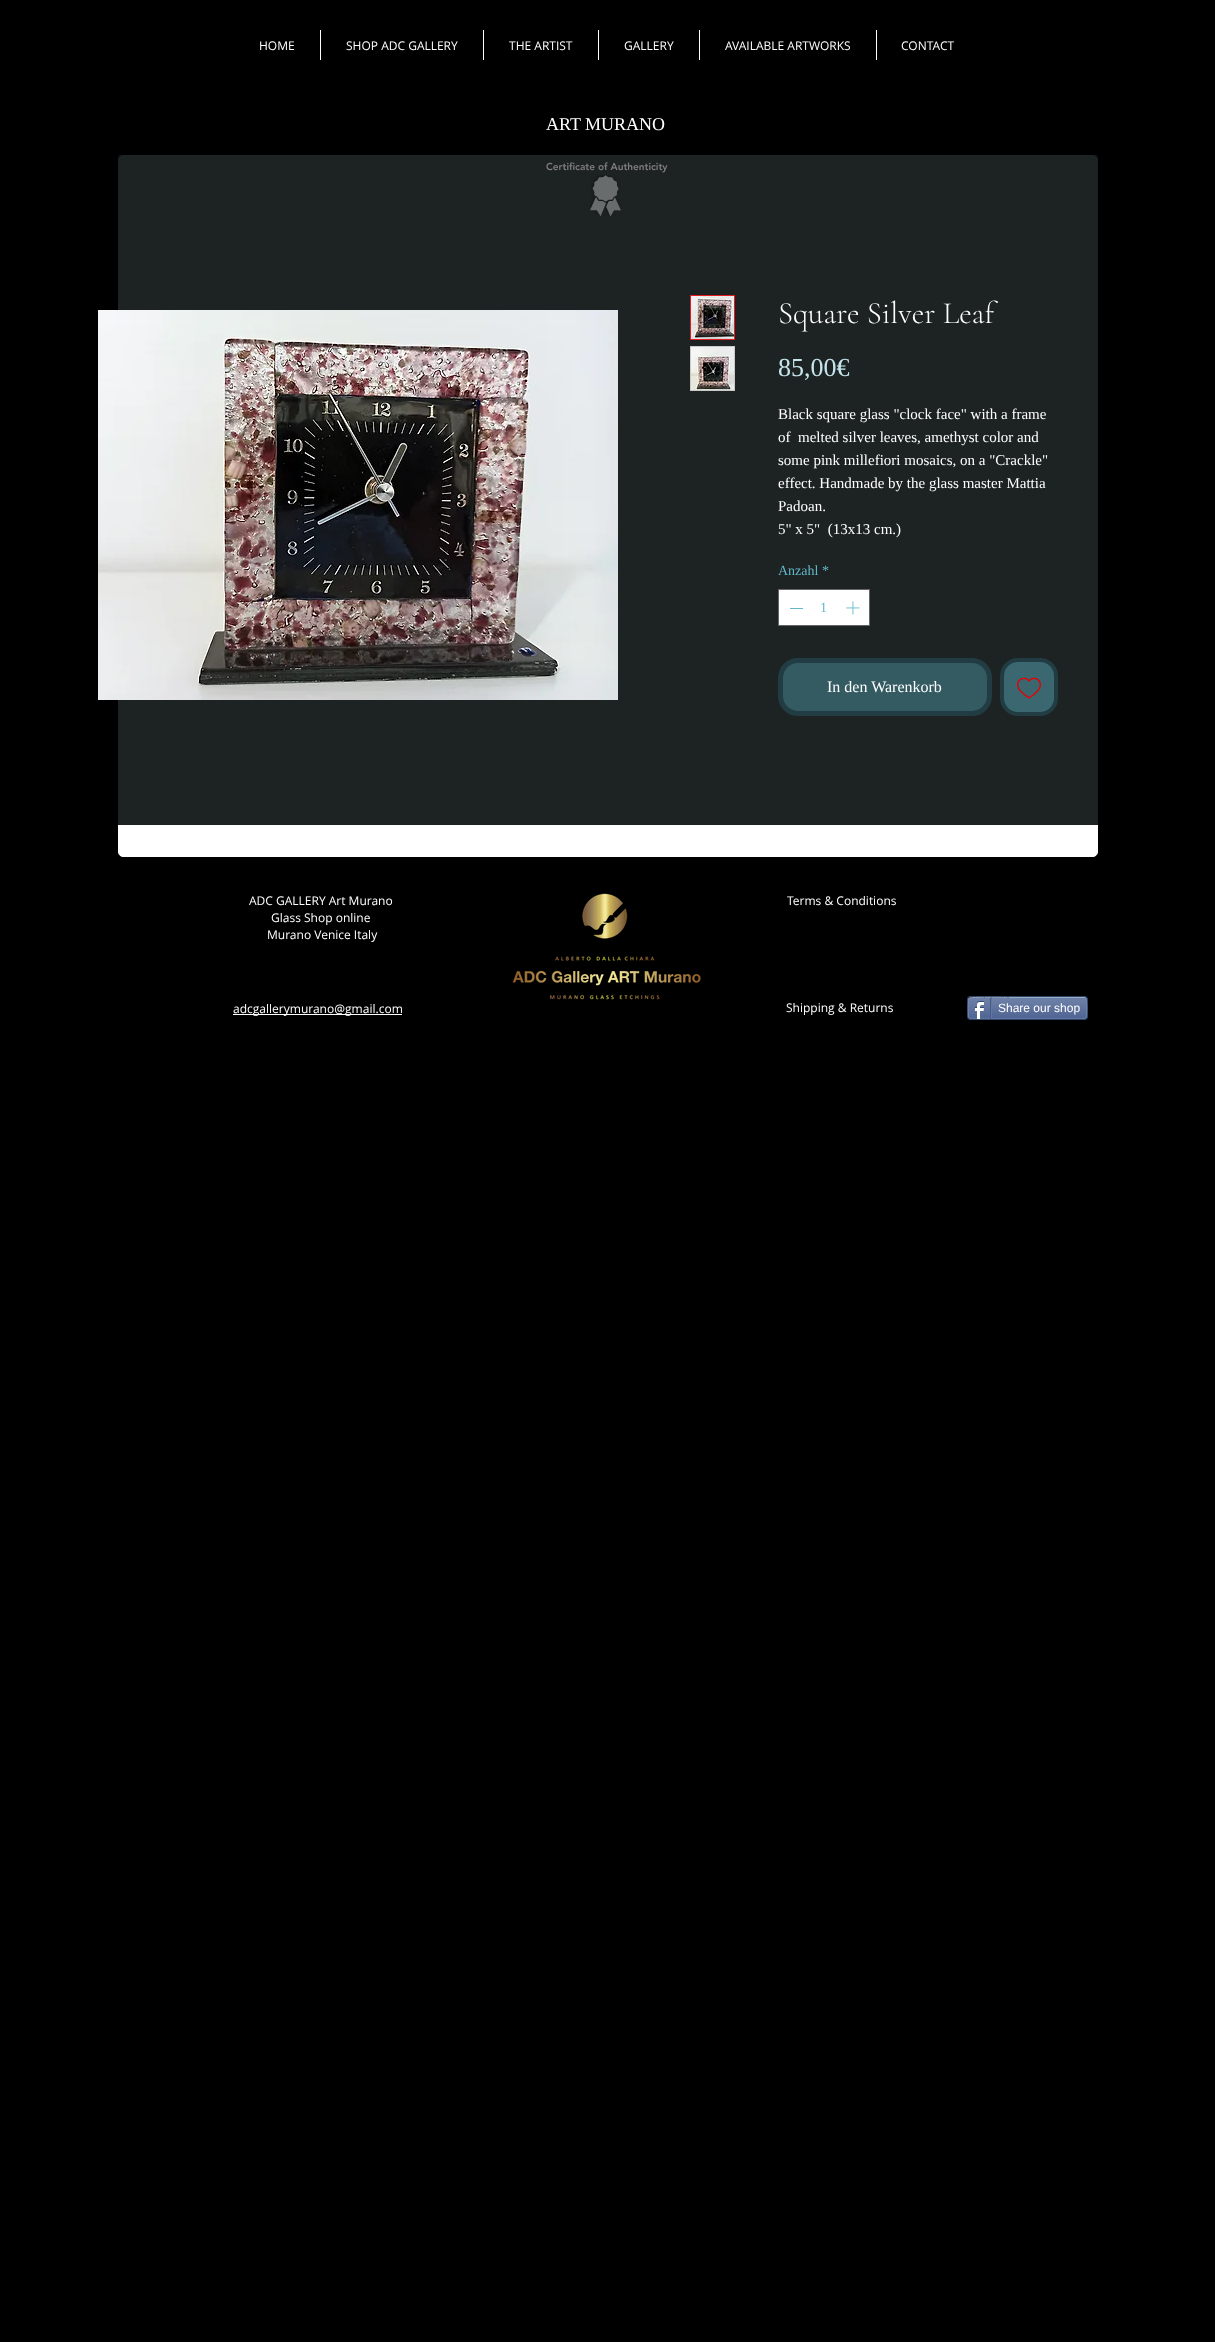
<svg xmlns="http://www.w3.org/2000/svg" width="1215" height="2342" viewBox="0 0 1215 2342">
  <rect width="100%" height="100%" fill="#000000"/>
  <text x="259" y="50" font-family="Open Sans" font-size="12" fill="#ffffff">HOME</text>
  <rect x="320" y="30" width="1" height="30" fill="#ffffff"/>
  <text x="346" y="50" font-family="Open Sans" font-size="12" fill="#ffffff">SHOP ADC GALLERY</text>
  <rect x="483" y="30" width="1" height="30" fill="#ffffff"/>
  <text x="509" y="50" font-family="Open Sans" font-size="12" fill="#ffffff">THE ARTIST</text>
  <rect x="598" y="30" width="1" height="30" fill="#ffffff"/>
  <text x="624" y="50" font-family="Open Sans" font-size="12" fill="#ffffff">GALLERY</text>
  <rect x="699" y="30" width="1" height="30" fill="#ffffff"/>
  <text x="725" y="50" font-family="Open Sans" font-size="12" fill="#ffffff">AVAILABLE ARTWORKS</text>
  <rect x="876" y="30" width="1" height="30" fill="#ffffff"/>
  <text x="901" y="50" font-family="Open Sans" font-size="12" fill="#ffffff">CONTACT</text>
  <text x="546" y="130" font-family="Liberation Serif" font-size="18" fill="#ffffff">ART MURANO</text>
  <rect x="118.5" y="155.5" width="979" height="701" rx="4.5" fill="#ffffff" stroke="#ffffff"/>
  <rect x="118" y="155" width="980" height="670" fill="#000000" fill-opacity="0.89"/>
  <rect x="118" y="155" width="980" height="670" fill="#213d43" fill-opacity="0.2"/>
  <text x="546" y="170" font-family="'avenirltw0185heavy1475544'" font-size="10" font-weight="900" fill="#7f7e7e">Certificate of Authenticity</text>
  <image x="590" y="175" width="31" height="42" href="img1.png"/>
  <image x="98" y="310" width="520" height="390" href="img2.png"/>
  <rect x="690.5" y="295.5" width="44" height="44" fill="none" stroke="#e21c21"/>
  <image x="691" y="296" width="43" height="43" href="img3.png"/>
  <rect x="690" y="346" width="45" height="45" fill="#cacaca"/>
  <image x="691" y="347" width="43" height="43" href="img4.png"/>
  <text x="778" y="323" font-family="Cormorant Garamond" font-size="31" font-weight="300" fill="#ffffff">Square Silver Leaf</text>
  <text x="778" y="376" font-family="Liberation Serif" font-size="26" fill="#c5e6ed">85,00€</text>
  <text x="778" y="419" font-family="Liberation Serif" font-size="15" fill="#ffffff">Black square glass "clock face" with a frame</text>
  <text x="778" y="442" font-family="Liberation Serif" font-size="15" fill="#ffffff" xml:space="preserve">of  melted silver leaves, amethyst color and</text>
  <text x="778" y="465" font-family="Liberation Serif" font-size="15" fill="#ffffff">some pink millefiori mosaics, on a "Crackle"</text>
  <text x="778" y="488" font-family="Liberation Serif" font-size="15" fill="#ffffff">effect. Handmade by the glass master Mattia</text>
  <text x="778" y="511" font-family="Liberation Serif" font-size="15" fill="#ffffff">Padoan.</text>
  <text x="778" y="534" font-family="Liberation Serif" font-size="15" fill="#ffffff" xml:space="preserve">5" x 5"  (13x13 cm.)</text>
  <text x="778" y="575" font-family="Liberation Serif" font-size="14" fill="#63b7c9">Anzahl</text>
  <text x="822" y="575" font-family="Liberation Serif" font-size="14" fill="#63b7c9">*</text>
  <rect x="778.5" y="589.5" width="91" height="36" fill="#ffffff" stroke="#666666"/>
  <rect x="790" y="608" width="13" height="1" fill="#63b7c9"/>
  <text x="820" y="612" font-family="Liberation Serif" font-size="14" fill="#63b7c9">1</text>
  <image x="846" y="601" width="14" height="14" href="img5.png"/>
  <rect x="780.5" y="660.5" width="209" height="53" rx="17.5" fill="#345a62" stroke="#213d43" stroke-width="5"/>
  <text x="827" y="692" font-family="Liberation Serif" font-size="16" fill="#ffffff">In den Warenkorb</text>
  <rect x="1002" y="660" width="54" height="54" rx="16" fill="#3a6770" stroke="#213d43" stroke-width="4"/>
  <image x="1017" y="677" width="24" height="22" href="img6.png"/>
  <text x="249" y="905" font-family="Open Sans" font-size="12" fill="#ffffff">ADC GALLERY Art Murano</text>
  <text x="271" y="922" font-family="Open Sans" font-size="12" fill="#ffffff">Glass Shop online</text>
  <text x="267" y="939" font-family="Open Sans" font-size="12" fill="#ffffff">Murano Venice Italy</text>
  <image x="512" y="893" width="189" height="107" href="img7.png"/>
  <text x="787" y="905" font-family="Open Sans" font-size="12" fill="#ffffff">Terms &amp; Conditions</text>
  <rect x="233" y="1014" width="169" height="1" fill="#ffffff"/>
  <text x="233" y="1013" font-family="Open Sans" font-size="12" fill="#ffffff">adcgallerymurano@gmail.com</text>
  <text x="786" y="1012" font-family="Open Sans" font-size="12" fill="#ffffff">Shipping &amp; Returns</text>
  <rect x="967.5" y="996.5" width="120" height="23" rx="2.5" fill="none" stroke="#2d4565"/>
  <image x="968" y="998" width="119" height="21" href="img8.png"/>
  <path d="M969 998C970 997 1005.5 997.5 1008.5 997.5H1085L1086 998" fill="none" stroke="#9aabc6"/>
  <path d="M1086 998C1087 998.5 1087 1017.5 1086 1018" fill="none" stroke="#6f83ad"/>
  <path d="M1086 1018L1085 1018.5H1008.5C1005.5 1018.5 970 1019 969 1018" fill="none" stroke="#6176a3"/>
  <path d="M969 1018C968 1017.5 968 998.5 969 998" fill="none" stroke="#6f83ad"/>
  <image x="974" y="1001" width="10" height="18" href="img9.png"/>
  <rect x="990" y="998" width="1" height="21" fill="#425e85"/>
  <text x="998" y="1012" font-family="Liberation Sans" font-size="12" fill="#ffffff">Share our shop</text>
  <rect x="991" y="998" width="1" height="20" fill="#6176a3"/>
</svg>
